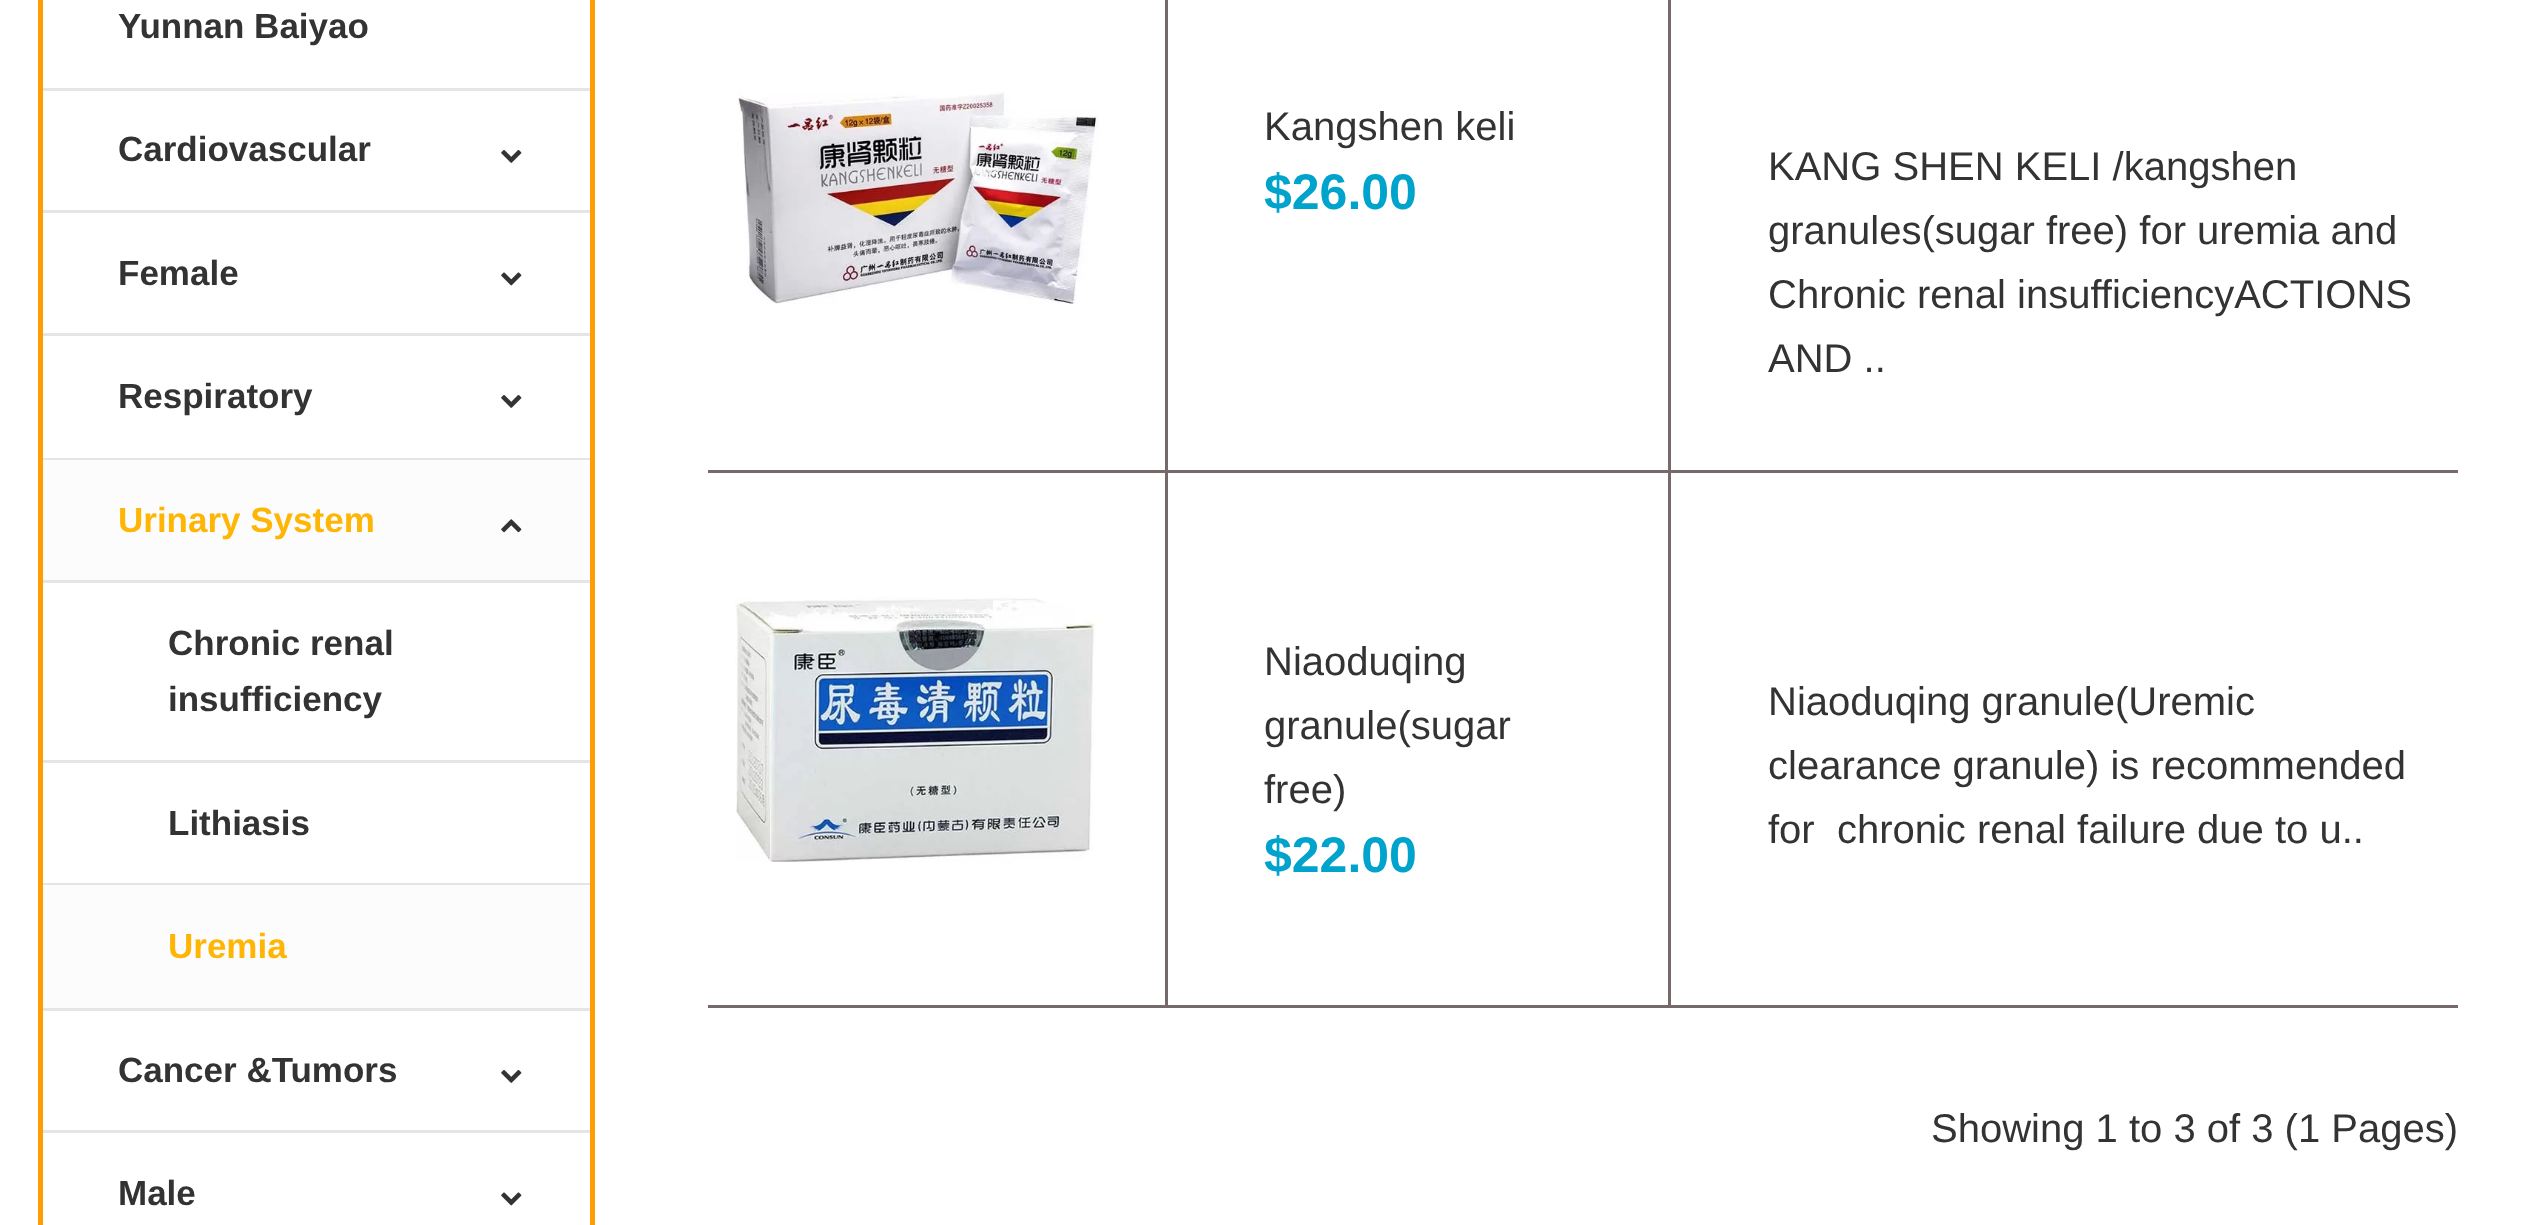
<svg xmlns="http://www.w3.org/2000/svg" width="2531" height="1225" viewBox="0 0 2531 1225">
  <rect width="100%" height="100%" fill="#ffffff"/>
  <rect x="590" y="0" width="5" height="1225" fill="#ff9d02"/>
  <rect x="38" y="0" width="5" height="1225" fill="#ff9d02"/>
  <text x="118" y="38" font-family="Liberation Sans" font-size="35" font-weight="bold" fill="#333333">Yunnan Baiyao</text>
  <rect x="43" y="88" width="547" height="3" fill="#e5e5e5"/>
  <text x="118" y="161" font-family="Liberation Sans" font-size="35" font-weight="bold" fill="#333333">Cardiovascular</text>
  <image x="501" y="150" width="21" height="13" href="img1.png"/>
  <rect x="43" y="210" width="547" height="3" fill="#e5e5e5"/>
  <text x="118" y="285" font-family="Liberation Sans" font-size="35" font-weight="bold" fill="#333333">Female</text>
  <image x="501" y="272" width="21" height="14" href="img2.png"/>
  <rect x="43" y="333" width="547" height="3" fill="#e5e5e5"/>
  <text x="118" y="408" font-family="Liberation Sans" font-size="35" font-weight="bold" fill="#333333">Respiratory</text>
  <image x="501" y="395" width="21" height="13" href="img1.png"/>
  <rect x="43" y="458" width="547" height="2" fill="#e5e5e5"/>
  <rect x="43" y="460" width="547" height="120" fill="#fcfcfc"/>
  <text x="118" y="532" font-family="Liberation Sans" font-size="35" font-weight="bold" fill="#ffb504">Urinary System</text>
  <image x="501" y="519" width="21" height="14" href="img3.png"/>
  <rect x="43" y="580" width="547" height="3" fill="#e5e5e5"/>
  <text x="168" y="655" font-family="Liberation Sans" font-size="35" font-weight="bold" fill="#333333">Chronic renal</text>
  <text x="168" y="711" font-family="Liberation Sans" font-size="35" font-weight="bold" fill="#333333">insufficiency</text>
  <rect x="43" y="760" width="547" height="3" fill="#e5e5e5"/>
  <text x="168" y="835" font-family="Liberation Sans" font-size="35" font-weight="bold" fill="#333333">Lithiasis</text>
  <rect x="43" y="883" width="547" height="2" fill="#e5e5e5"/>
  <rect x="43" y="885" width="547" height="123" fill="#fcfcfc"/>
  <text x="168" y="958" font-family="Liberation Sans" font-size="35" font-weight="bold" fill="#ffb504">Uremia</text>
  <rect x="43" y="1008" width="547" height="3" fill="#e5e5e5"/>
  <text x="118" y="1082" font-family="Liberation Sans" font-size="35" font-weight="bold" fill="#333333">Cancer &amp;Tumors</text>
  <image x="501" y="1070" width="21" height="13" href="img1.png"/>
  <rect x="43" y="1130" width="547" height="3" fill="#e5e5e5"/>
  <text x="118" y="1205" font-family="Liberation Sans" font-size="35" font-weight="bold" fill="#333333">Male</text>
  <image x="501" y="1192" width="21" height="14" href="img2.png"/>
  <image x="738" y="92" width="361" height="213" href="img4.png"/>
  <rect x="1165" y="0" width="3" height="470" fill="#766969"/>
  <text x="1264" y="140" font-family="Liberation Sans" font-size="40" fill="#333333">Kangshen keli</text>
  <text x="1264" y="209" font-family="Liberation Sans" font-size="50" font-weight="bold" fill="#00a3cc">$26.00</text>
  <rect x="1668" y="0" width="3" height="470" fill="#766969"/>
  <text x="1768" y="180" font-family="Liberation Sans" font-size="40" fill="#333333">KANG SHEN KELI /kangshen</text>
  <text x="1768" y="244" font-family="Liberation Sans" font-size="40" fill="#333333">granules(sugar free) for uremia and</text>
  <text x="1768" y="308" font-family="Liberation Sans" font-size="40" fill="#333333">Chronic renal insufficiencyACTIONS</text>
  <text x="1768" y="372" font-family="Liberation Sans" font-size="40" fill="#333333">AND ..</text>
  <rect x="708" y="470" width="1750" height="3" fill="#766969"/>
  <image x="735" y="597" width="362" height="265" href="img5.png"/>
  <rect x="1165" y="473" width="3" height="532" fill="#766969"/>
  <text x="1264" y="675" font-family="Liberation Sans" font-size="40" fill="#333333">Niaoduqing</text>
  <text x="1264" y="739" font-family="Liberation Sans" font-size="40" fill="#333333">granule(sugar</text>
  <text x="1264" y="803" font-family="Liberation Sans" font-size="40" fill="#333333">free)</text>
  <text x="1264" y="872" font-family="Liberation Sans" font-size="50" font-weight="bold" fill="#00a3cc">$22.00</text>
  <rect x="1668" y="473" width="3" height="532" fill="#766969"/>
  <text x="1768" y="715" font-family="Liberation Sans" font-size="40" fill="#333333">Niaoduqing granule(Uremic</text>
  <text x="1768" y="779" font-family="Liberation Sans" font-size="40" fill="#333333">clearance granule) is recommended</text>
  <text x="1768" y="843" font-family="Liberation Sans" font-size="40" fill="#333333" xml:space="preserve">for  chronic renal failure due to u..</text>
  <rect x="708" y="1005" width="1750" height="3" fill="#766969"/>
  <text x="1931" y="1142" font-family="Liberation Sans" font-size="40" fill="#333333">Showing 1 to 3 of 3 (1 Pages)</text>
</svg>
